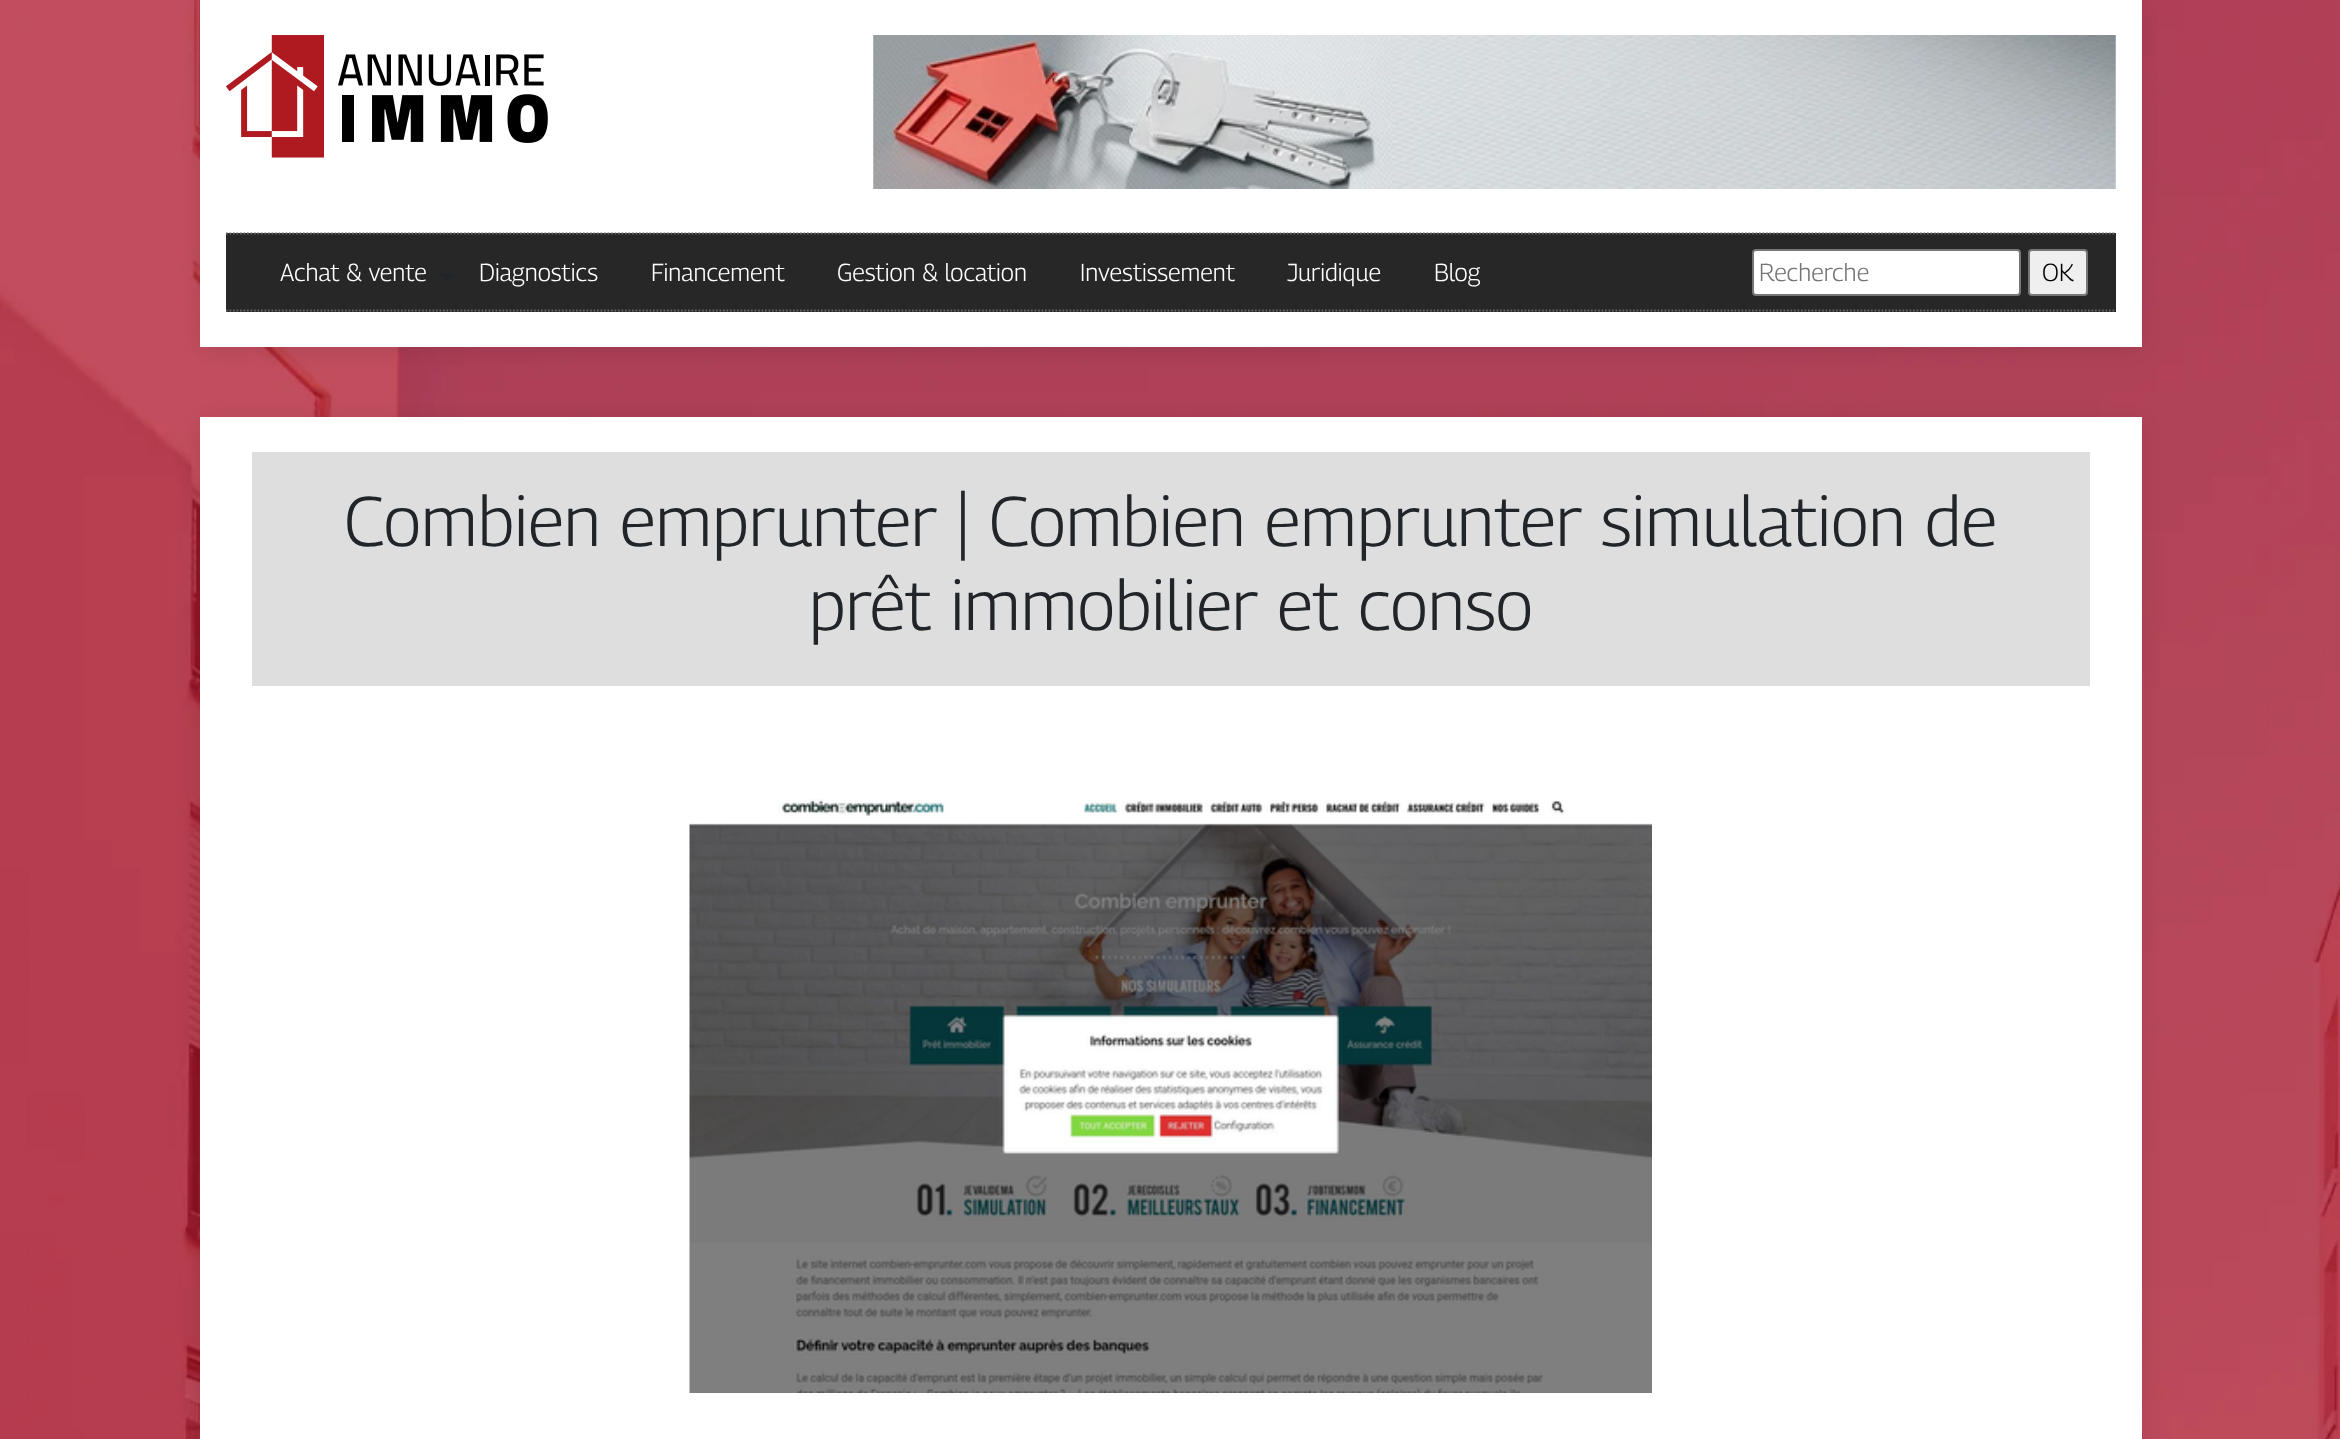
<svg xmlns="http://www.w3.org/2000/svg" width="2340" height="1439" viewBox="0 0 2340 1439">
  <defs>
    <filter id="blur1" x="-50%" y="-200%" width="200%" height="500%"><feGaussianBlur stdDeviation="11.5"/></filter>
  </defs>
  <rect width="100%" height="100%" fill="#ffffff"/>
  <image x="0" y="0" width="2340" height="1439" href="img1.png"/>
  <rect x="200" y="4" width="1942" height="346" fill="#000000" fill-opacity="0.1" filter="url(#blur1)"/>
  <rect x="200" y="0" width="1942" height="347" fill="#ffffff"/>
  <image x="226" y="35" width="322" height="123" href="img2.png"/>
  <image x="873" y="35" width="1243" height="154" href="img3.png"/>
  <rect x="226" y="233" width="1890" height="79" fill="#272727"/>
  <path d="M226 233.5H2116" fill="none" stroke="#666666" stroke-width="1.8" stroke-dasharray="1.75 1.75"/>
  <path d="M226 310.5H2116" fill="none" stroke="#666666" stroke-width="1.8" stroke-dasharray="1.75 1.75"/>
  <text x="280" y="281" font-family="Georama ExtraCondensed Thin" font-size="24.5" font-weight="100" fill="#ffffff">Achat &amp; vente</text>
  <image x="440" y="273" width="13" height="8" href="img4.png"/>
  <text x="479" y="281" font-family="Georama ExtraCondensed Thin" font-size="24.5" font-weight="100" fill="#ffffff">Diagnostics</text>
  <text x="651" y="281" font-family="Georama ExtraCondensed Thin" font-size="24.5" font-weight="100" fill="#ffffff">Financement</text>
  <text x="837" y="281" font-family="Georama ExtraCondensed Thin" font-size="24.5" font-weight="100" fill="#ffffff">Gestion &amp; location</text>
  <text x="1080" y="281" font-family="Georama ExtraCondensed Thin" font-size="24.5" font-weight="100" fill="#ffffff">Investissement</text>
  <text x="1287" y="281" font-family="Georama ExtraCondensed Thin" font-size="24.5" font-weight="100" fill="#ffffff">Juridique</text>
  <text x="1434" y="281" font-family="Georama ExtraCondensed Thin" font-size="24.5" font-weight="100" fill="#ffffff">Blog</text>
  <rect x="1753" y="250" width="267" height="45" rx="3" fill="#ffffff" stroke="#767676" stroke-width="2"/>
  <text x="1759" y="281" font-family="Georama ExtraCondensed Thin" font-size="24.5" font-weight="100" fill="#757575">Recherche</text>
  <rect x="2029" y="250" width="58" height="45" rx="3" fill="#efefef" stroke="#767676" stroke-width="2"/>
  <text x="2042" y="281" font-family="Georama ExtraCondensed Thin" font-size="24.5" font-weight="100" fill="#000000">OK</text>
  <rect x="200" y="420" width="1942" height="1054" fill="#000000" fill-opacity="0.1" filter="url(#blur1)"/>
  <rect x="200" y="417" width="1942" height="1022" fill="#ffffff"/>
  <rect x="252" y="452" width="1838" height="234" fill="#dedede"/>
  <text x="344" y="546" font-family="Georama ExtraCondensed Thin" font-size="70" font-weight="100" fill="#212529">Combien emprunter | Combien emprunter simulation de</text>
  <text x="809" y="630" font-family="Georama ExtraCondensed Thin" font-size="70" font-weight="100" fill="#212529">prêt immobilier et conso</text>
  <image x="689" y="799" width="963" height="594" href="img5.png"/>
</svg>
